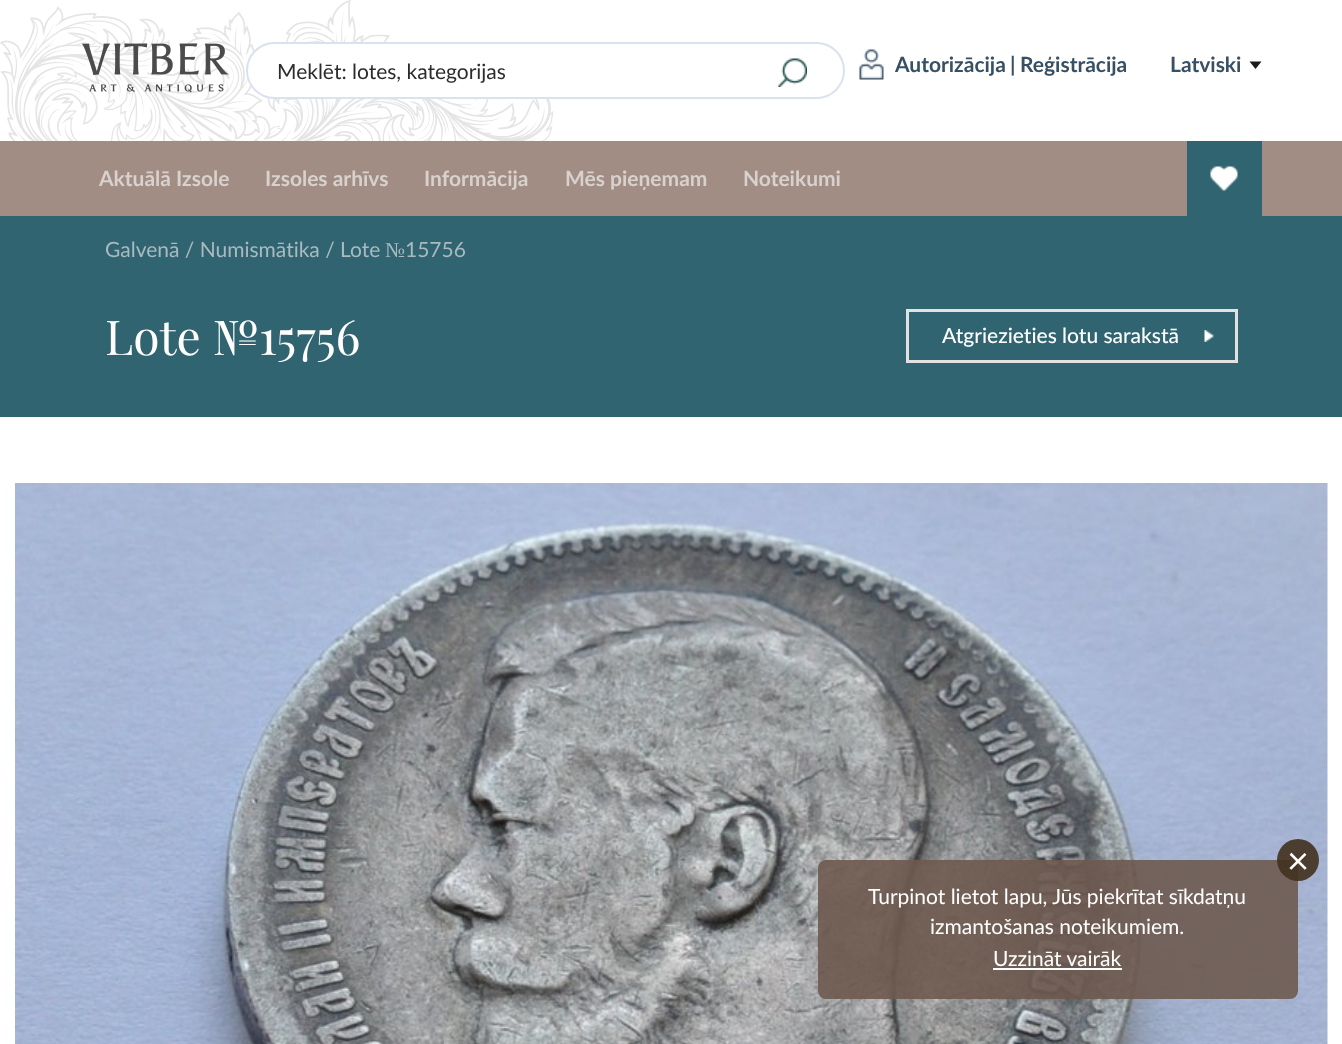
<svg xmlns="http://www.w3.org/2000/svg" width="1342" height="1044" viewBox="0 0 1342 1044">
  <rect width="100%" height="100%" fill="#ffffff"/>
  <image x="0" y="0" width="554" height="141" href="img1.png"/>
  <image x="82" y="43" width="147" height="50" href="img2.png"/>
  <rect x="246" y="42" width="599" height="57" rx="28.5" fill="#ffffff"/>
  <rect x="247" y="43" width="597" height="55" rx="27.5" fill="none" stroke="#4469ad" stroke-opacity="0.2" stroke-width="2"/>
  <text x="277" y="79" font-family="Lato" font-size="21" fill="#2d2c2c">Meklēt: lotes, kategorijas</text>
  <image x="778" y="58" width="29" height="29" href="img3.png"/>
  <image x="859" y="49" width="25" height="31" href="img4.png"/>
  <text x="895" y="72" font-family="Lato" font-size="21" font-weight="bold" fill="#385063">Autorizācija</text>
  <text x="1010" y="72" font-family="Lato" font-size="21" font-weight="bold" fill="#385063">|</text>
  <text x="1020" y="72" font-family="Lato" font-size="21" font-weight="bold" fill="#385063">Reģistrācija</text>
  <text x="1170" y="72" font-family="Lato" font-size="21" font-weight="bold" fill="#385063">Latviski</text>
  <path d="M1249.5 61.5H1261.5L1255.5 69Z" fill="#1a1a1a"/>
  <rect x="0" y="141" width="1342" height="75" fill="#a18d84"/>
  <text x="99" y="186" font-family="Lato" font-size="21" font-weight="bold" fill="#d9d1ce">Aktuālā Izsole</text>
  <text x="265" y="186" font-family="Lato" font-size="21" font-weight="bold" fill="#d9d1ce">Izsoles arhīvs</text>
  <text x="424" y="186" font-family="Lato" font-size="21" font-weight="bold" fill="#d9d1ce">Informācija</text>
  <text x="565" y="186" font-family="Lato" font-size="21" font-weight="bold" fill="#d9d1ce">Mēs pieņemam</text>
  <text x="743" y="186" font-family="Lato" font-size="21" font-weight="bold" fill="#d9d1ce">Noteikumi</text>
  <rect x="1187" y="141" width="75" height="75" fill="#306470"/>
  <image x="1210" y="166" width="28" height="25" href="img5.png"/>
  <rect x="0" y="216" width="1342" height="201" fill="#306470"/>
  <text x="105" y="257" font-family="Lato" font-size="21" fill="#a9bac0">Galvenā / Numismātika / Lote</text>
  <text x="385" y="257" font-family="Liberation Serif" font-size="21" fill="#a9bac0">№</text>
  <text x="405" y="257" font-family="Lato" font-size="21" fill="#a9bac0">15756</text>
  <text x="105" y="355" font-family="Playfair Display" font-size="48" fill="#ffffff">Lote №15756</text>
  <rect x="907.5" y="310.5" width="329" height="51" fill="none" stroke="#e2e2e2" stroke-width="3"/>
  <text x="942" y="343" font-family="Lato" font-size="21" font-weight="500" fill="#ffffff">Atgriezieties lotu sarakstā</text>
  <image x="1204" y="330" width="10" height="12" href="img6.png"/>
  <image x="15" y="483" width="1313" height="561" href="img7.png"/>
  <rect x="818" y="860" width="480" height="139" rx="8" fill="#6e5a50" fill-opacity="0.9"/>
  <circle cx="1298" cy="860" r="21" fill="#41311e" fill-opacity="0.9"/>
  <text x="1287" y="874" font-family="Lato" font-size="38" fill="#ffffff">×</text>
  <text x="868" y="904" font-family="Lato" font-size="21" fill="#ffffff">Turpinot lietot lapu, Jūs piekrītat sīkdatņu</text>
  <text x="930" y="934" font-family="Lato" font-size="21" fill="#ffffff">izmantošanas noteikumiem.</text>
  <text x="993" y="966" font-family="Lato" font-size="21" fill="#ffffff">Uzzināt vairāk</text>
  <rect x="993" y="968" width="129" height="2" fill="#ffffff"/>
</svg>
